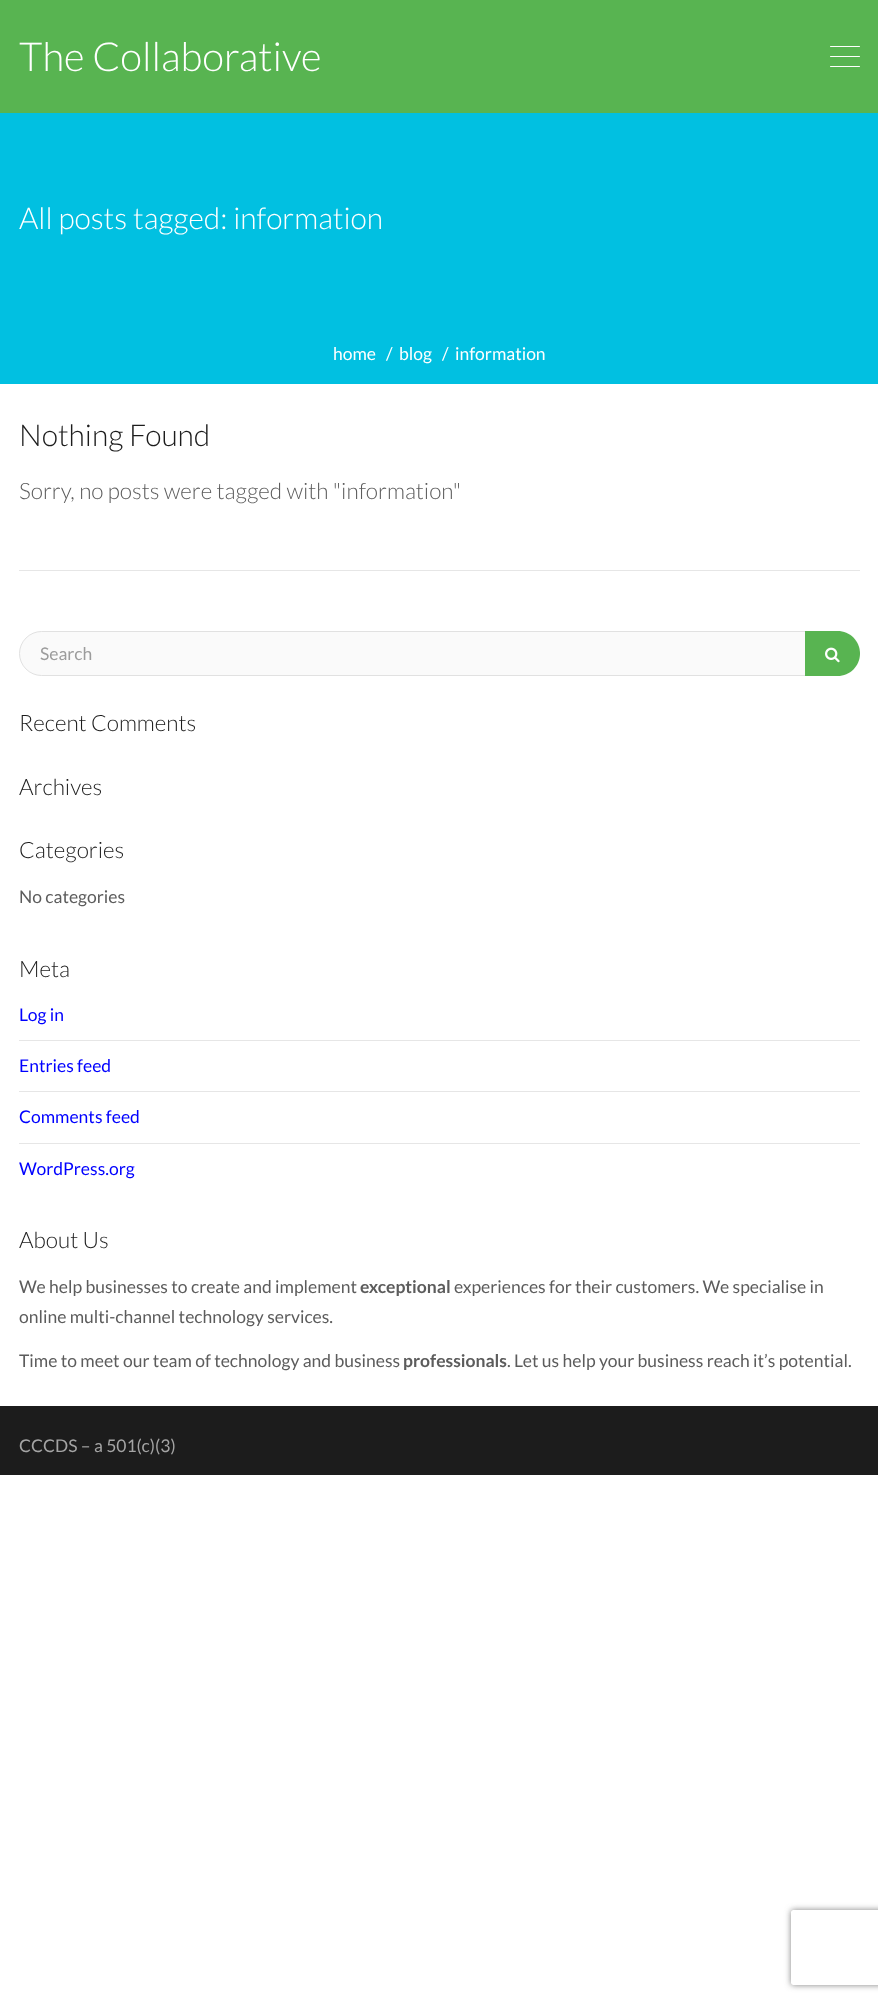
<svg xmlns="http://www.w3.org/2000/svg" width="878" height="2002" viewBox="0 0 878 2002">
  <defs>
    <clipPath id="clip1"><path d="M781 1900H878V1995H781ZM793.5 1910H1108.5C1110 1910 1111 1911 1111 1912.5V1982.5C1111 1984 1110 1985 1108.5 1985H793.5C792 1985 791 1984 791 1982.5V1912.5C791 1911 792 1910 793.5 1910Z" clip-rule="evenodd"/></clipPath>
    <filter id="blur1" x="-50%" y="-200%" width="200%" height="500%"><feGaussianBlur stdDeviation="3"/></filter>
  </defs>
  <rect width="100%" height="100%" fill="#ffffff"/>
  <rect x="0" y="0" width="878" height="113" fill="#58b451"/>
  <text x="19" y="71" font-family="Lato" font-size="40" font-weight="300" fill="#ffffff">The Collaborative</text>
  <rect x="830" y="46" width="30" height="1" rx="0.5" fill="#ffffff"/>
  <rect x="830" y="56" width="30" height="1" rx="0.5" fill="#ffffff"/>
  <rect x="830" y="66" width="30" height="1" rx="0.5" fill="#ffffff"/>
  <rect x="0" y="113" width="878" height="271" fill="#01c0e1"/>
  <text x="19" y="229" font-family="Lato" font-size="30" font-weight="300" fill="#ffffff">All posts tagged: information</text>
  <text x="333" y="360" font-family="Lato" font-size="17.5" fill="#ffffff">home</text>
  <text x="386" y="360" font-family="Lato" font-size="17.5" fill="#ffffff">/</text>
  <text x="399" y="360" font-family="Lato" font-size="17.5" fill="#ffffff">blog</text>
  <text x="442" y="360" font-family="Lato" font-size="17.5" fill="#ffffff">/</text>
  <text x="455" y="360" font-family="Lato" font-size="17.5" fill="#ffffff">information</text>
  <text x="19" y="446" font-family="Lato" font-size="30" font-weight="300" fill="#1c1c1c">Nothing Found</text>
  <text x="19" y="499" font-family="Lato" font-size="22.5" font-weight="300" fill="#5c5c5c">Sorry, no posts were tagged with "information"</text>
  <rect x="19" y="570" width="841" height="1" fill="#e6e6e6"/>
  <path d="M41.5 631.5H805.5V675.5H41.5C29.5 675.5 19.5 665.5 19.5 653.5C19.5 641.5 29.5 631.5 41.5 631.5Z" fill="#fafafa" stroke="#e1e1e1"/>
  <text x="40" y="660" font-family="Lato" font-size="17.5" fill="#9c9c9c">Search</text>
  <path d="M805 631H837.5C850 631 860 641 860 653.5C860 666 850 676 837.5 676H805Z" fill="#58b451"/>
  <image x="825" y="647" width="15" height="16" href="img1.png"/>
  <text x="19" y="731" font-family="Lato" font-size="22.5" font-weight="300" fill="#1c1c1c">Recent Comments</text>
  <text x="19" y="795" font-family="Lato" font-size="22.5" font-weight="300" fill="#1c1c1c">Archives</text>
  <text x="19" y="858" font-family="Lato" font-size="22.5" font-weight="300" fill="#1c1c1c">Categories</text>
  <text x="19" y="903" font-family="Lato" font-size="17.5" fill="#5c5c5c">No categories</text>
  <text x="19" y="977" font-family="Lato" font-size="22.5" font-weight="300" fill="#1c1c1c">Meta</text>
  <rect x="19" y="1040" width="841" height="1" fill="#e6e6e6"/>
  <text x="19" y="1021" font-family="Lato" font-size="17.5" fill="#0000ff">Log in</text>
  <rect x="19" y="1091" width="841" height="1" fill="#e6e6e6"/>
  <text x="19" y="1072" font-family="Lato" font-size="17.5" fill="#0000ff">Entries feed</text>
  <rect x="19" y="1143" width="841" height="1" fill="#e6e6e6"/>
  <text x="19" y="1123" font-family="Lato" font-size="17.5" fill="#0000ff">Comments feed</text>
  <text x="19" y="1175" font-family="Lato" font-size="17.5" fill="#0000ff">WordPress.org</text>
  <text x="19" y="1248" font-family="Lato" font-size="22.5" font-weight="300" fill="#1c1c1c">About Us</text>
  <text x="19" y="1293" font-family="Lato" font-size="17.5" fill="#5c5c5c">We help businesses to create and implement</text>
  <text x="360" y="1293" font-family="Lato" font-size="17.5" font-weight="bold" fill="#5c5c5c">exceptional</text>
  <text x="454" y="1293" font-family="Lato" font-size="17.5" fill="#5c5c5c">experiences for their customers. We specialise in</text>
  <text x="19" y="1323" font-family="Lato" font-size="17.5" fill="#5c5c5c">online multi-channel technology services.</text>
  <text x="19" y="1367" font-family="Lato" font-size="17.5" fill="#5c5c5c">Time to meet our team of technology and business</text>
  <text x="403" y="1367" font-family="Lato" font-size="17.5" font-weight="bold" fill="#5c5c5c">professionals</text>
  <text x="507" y="1367" font-family="Lato" font-size="17.5" fill="#5c5c5c">. Let us help your business reach it’s potential.</text>
  <rect x="0" y="1406" width="878" height="69" fill="#1c1c1c"/>
  <text x="19" y="1452" font-family="Lato" font-size="17.5" fill="#a4a4a4">CCCDS – a 501(c)(3)</text>
  <g clip-path="url(#clip1)">
    <rect x="791" y="1910" width="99" height="75" rx="2.5" fill="#808080" filter="url(#blur1)"/>
  </g>
</svg>
